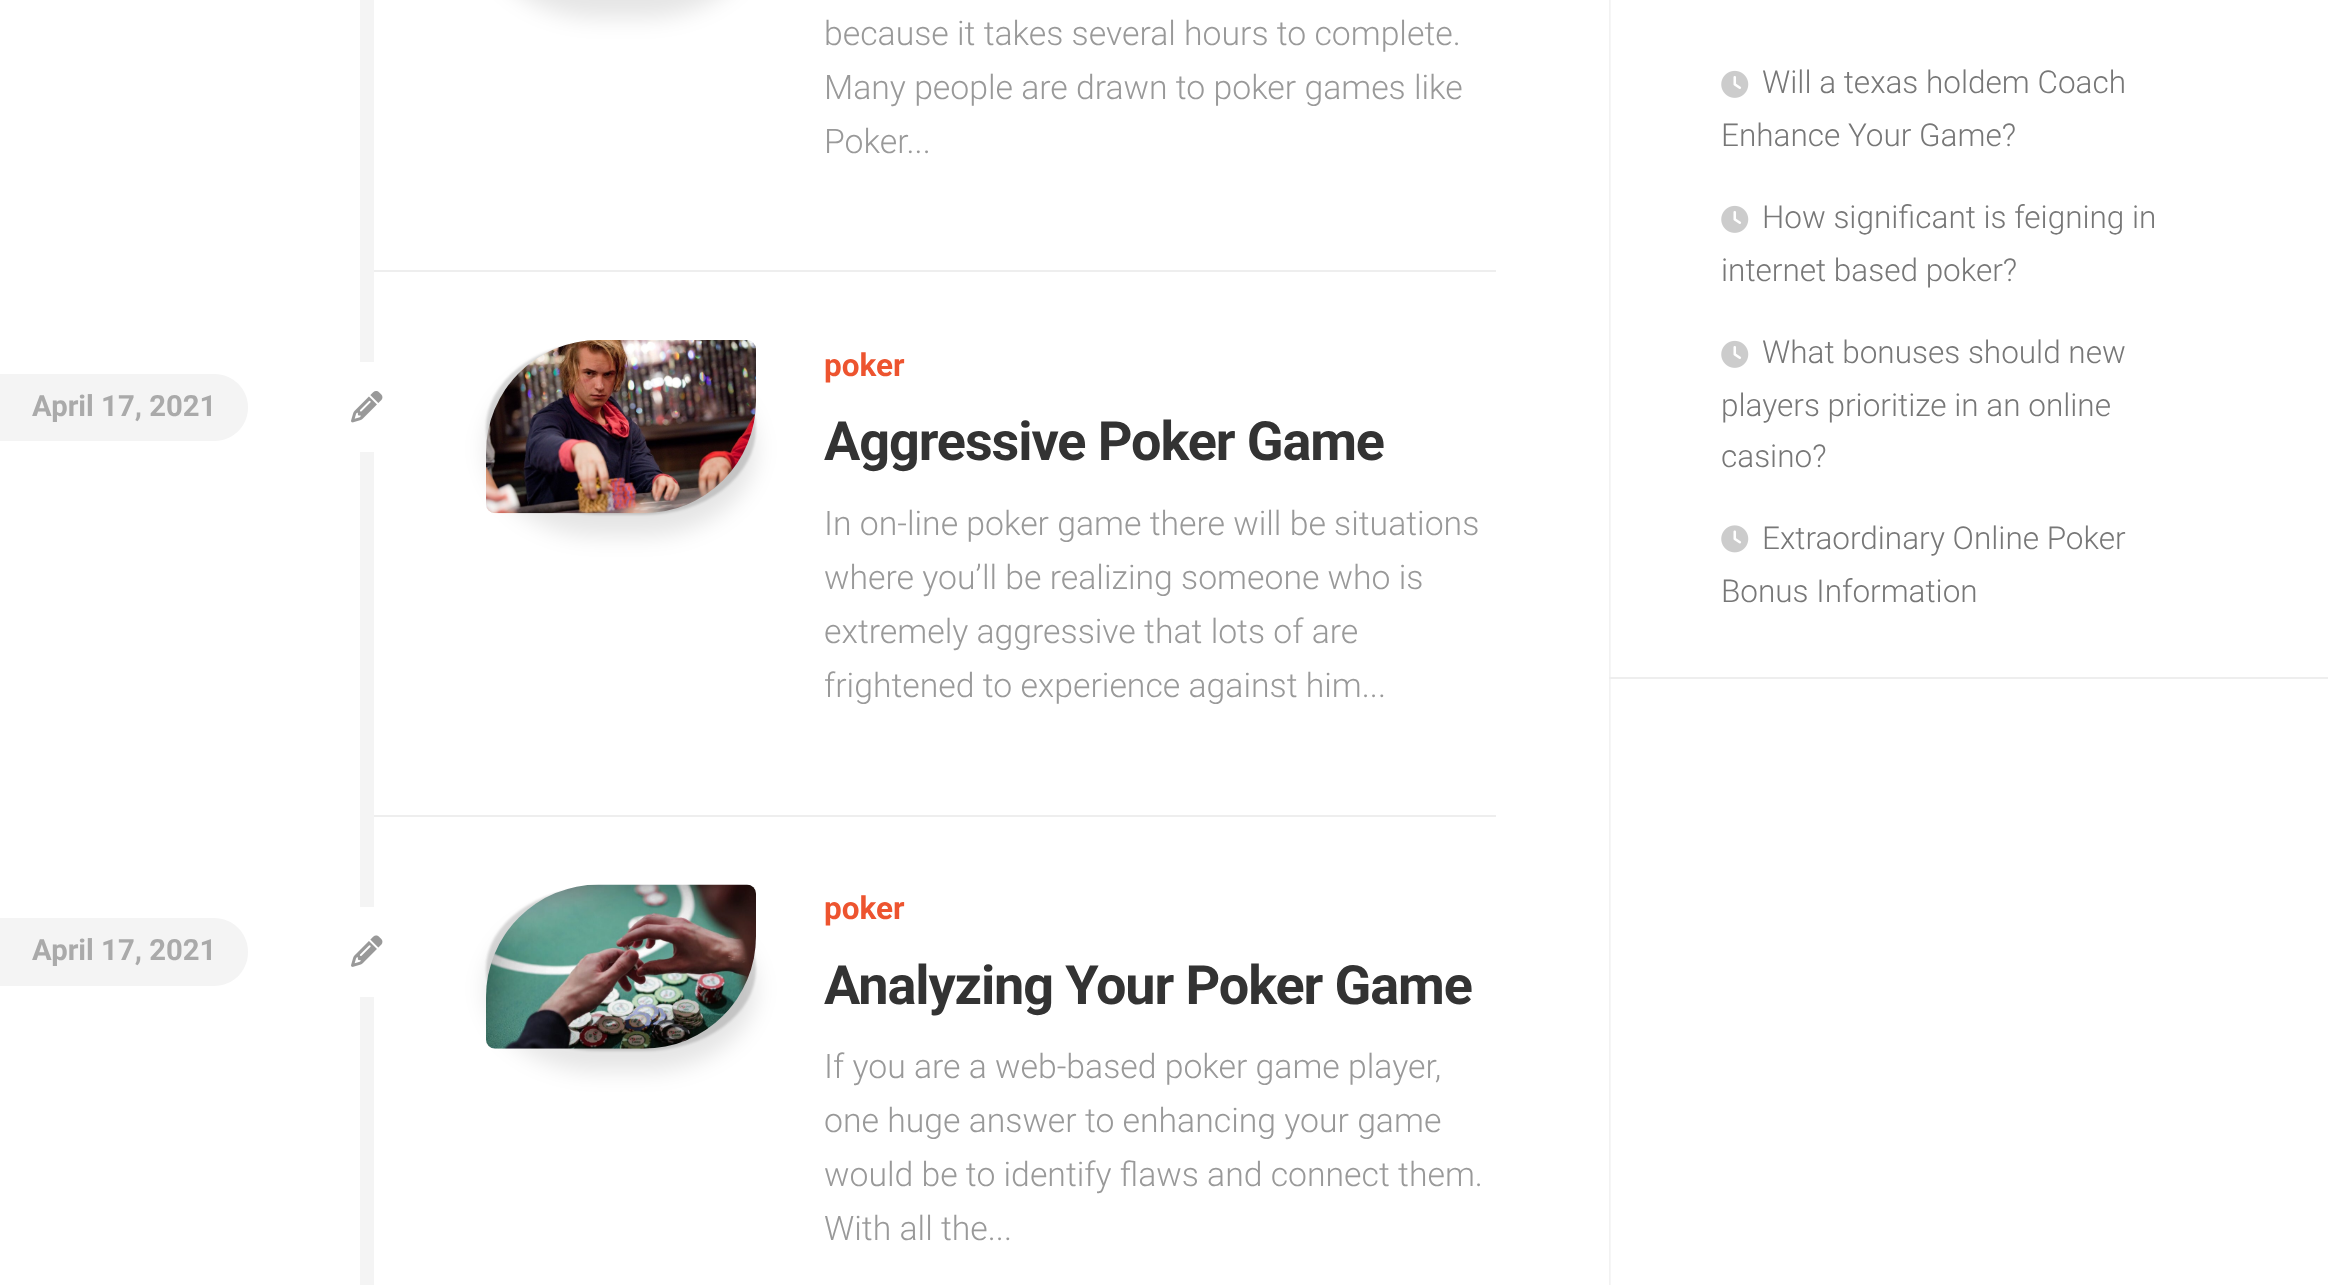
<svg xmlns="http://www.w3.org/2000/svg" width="2328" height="1285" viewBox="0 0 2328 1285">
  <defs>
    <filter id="blur1" x="-50%" y="-200%" width="200%" height="500%"><feGaussianBlur stdDeviation="11"/></filter>
    <filter id="blur2" x="-50%" y="-200%" width="200%" height="500%"><feGaussianBlur stdDeviation="1"/></filter>
  </defs>
  <rect width="100%" height="100%" fill="#ffffff"/>
  <rect x="360" y="0" width="14" height="1285" fill="#f4f4f4"/>
  <image x="1609" y="0" width="2" height="1285" href="img1.png"/>
  <rect x="374" y="270" width="1122" height="2" fill="#eeeeee"/>
  <rect x="486" y="-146" width="270" height="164" rx="113" fill="#000000" fill-opacity="0.1" filter="url(#blur1)"/>
  <text x="824" y="45" font-family="Roboto" font-size="33.75" font-weight="300" fill="#999999">because it takes several hours to complete.</text>
  <text x="824" y="99" font-family="Roboto" font-size="33.75" font-weight="300" fill="#999999">Many people are drawn to poker games like</text>
  <text x="824" y="153" font-family="Roboto" font-size="33.75" font-weight="300" fill="#999999">Poker...</text>
  <rect x="374" y="815" width="1122" height="2" fill="#eeeeee"/>
  <path d="M0 374H214.5C233 374 248 389 248 407.5C248 426 233 441 214.5 441H0Z" fill="#f4f4f4"/>
  <text x="32" y="416" font-family="Roboto" font-size="29.25" font-weight="bold" fill="#aaaaaa">April 17, 2021</text>
  <rect x="322" y="362" width="90" height="90" rx="23" fill="#ffffff"/>
  <image x="351" y="391" width="32" height="32" href="img2.png"/>
  <rect x="486" y="342" width="270" height="173" rx="113" fill="#000000" fill-opacity="0.15" filter="url(#blur2)"/>
  <rect x="486" y="362" width="270" height="174" rx="113" fill="#000000" fill-opacity="0.1" filter="url(#blur1)"/>
  <image x="486" y="340" width="270" height="174" href="img3.png"/>
  <text x="824" y="376" font-family="Roboto" font-size="31.5" font-weight="bold" fill="#ed542f">poker</text>
  <text x="824" y="460" font-family="Roboto" font-size="54" font-weight="bold" letter-spacing="-1.1" fill="#333333">Aggressive Poker Game</text>
  <text x="824" y="535" font-family="Roboto" font-size="33.75" font-weight="300" fill="#999999">In on-line poker game there will be situations</text>
  <text x="824" y="589" font-family="Roboto" font-size="33.75" font-weight="300" fill="#999999">where you’ll be realizing someone who is</text>
  <text x="824" y="643" font-family="Roboto" font-size="33.75" font-weight="300" fill="#999999">extremely aggressive that lots of are</text>
  <text x="824" y="697" font-family="Roboto" font-size="33.75" font-weight="300" fill="#999999">frightened to experience against him...</text>
  <path d="M0 918H214C233 918 248 933 248 952C248 971 233 986 214 986H0Z" fill="#f4f4f4"/>
  <text x="32" y="960" font-family="Roboto" font-size="29.25" font-weight="bold" fill="#aaaaaa">April 17, 2021</text>
  <rect x="322" y="907" width="90" height="90" rx="23" fill="#ffffff"/>
  <image x="351" y="935" width="32" height="32" href="img4.png"/>
  <rect x="486" y="887" width="270" height="164" rx="113" fill="#000000" fill-opacity="0.15" filter="url(#blur2)"/>
  <rect x="486" y="907" width="270" height="164" rx="113" fill="#000000" fill-opacity="0.1" filter="url(#blur1)"/>
  <image x="486" y="884" width="270" height="165" href="img5.png"/>
  <text x="824" y="919" font-family="Roboto" font-size="31.5" font-weight="bold" fill="#ed542f">poker</text>
  <text x="824" y="1004" font-family="Roboto" font-size="54" font-weight="bold" letter-spacing="-1.1" fill="#333333">Analyzing Your Poker Game</text>
  <text x="824" y="1078" font-family="Roboto" font-size="33.75" font-weight="300" fill="#999999">If you are a web-based poker game player,</text>
  <text x="824" y="1132" font-family="Roboto" font-size="33.75" font-weight="300" fill="#999999">one huge answer to enhancing your game</text>
  <text x="824" y="1186" font-family="Roboto" font-size="33.75" font-weight="300" fill="#999999">would be to identify flaws and connect them.</text>
  <text x="824" y="1240" font-family="Roboto" font-size="33.75" font-weight="300" fill="#999999">With all the...</text>
  <rect x="1609" y="677" width="719" height="2" fill="#eeeeee"/>
  <image x="1721" y="70" width="28" height="28" href="img6.png"/>
  <text x="1762" y="93" font-family="Roboto" font-size="31.5" font-weight="300" fill="#777777">Will a texas holdem Coach</text>
  <text x="1721" y="146" font-family="Roboto" font-size="31.5" font-weight="300" fill="#777777">Enhance Your Game?</text>
  <image x="1721" y="205" width="28" height="28" href="img6.png"/>
  <text x="1762" y="228" font-family="Roboto" font-size="31.5" font-weight="300" fill="#777777">How significant is feigning in</text>
  <text x="1721" y="281" font-family="Roboto" font-size="31.5" font-weight="300" fill="#777777">internet based poker?</text>
  <image x="1721" y="340" width="28" height="28" href="img6.png"/>
  <text x="1762" y="363" font-family="Roboto" font-size="31.5" font-weight="300" fill="#777777">What bonuses should new</text>
  <text x="1721" y="416" font-family="Roboto" font-size="31.5" font-weight="300" fill="#777777">players prioritize in an online</text>
  <text x="1721" y="467" font-family="Roboto" font-size="31.5" font-weight="300" fill="#777777">casino?</text>
  <image x="1721" y="525" width="28" height="28" href="img7.png"/>
  <text x="1762" y="549" font-family="Roboto" font-size="31.5" font-weight="300" fill="#777777">Extraordinary Online Poker</text>
  <text x="1721" y="602" font-family="Roboto" font-size="31.5" font-weight="300" fill="#777777">Bonus Information</text>
</svg>
